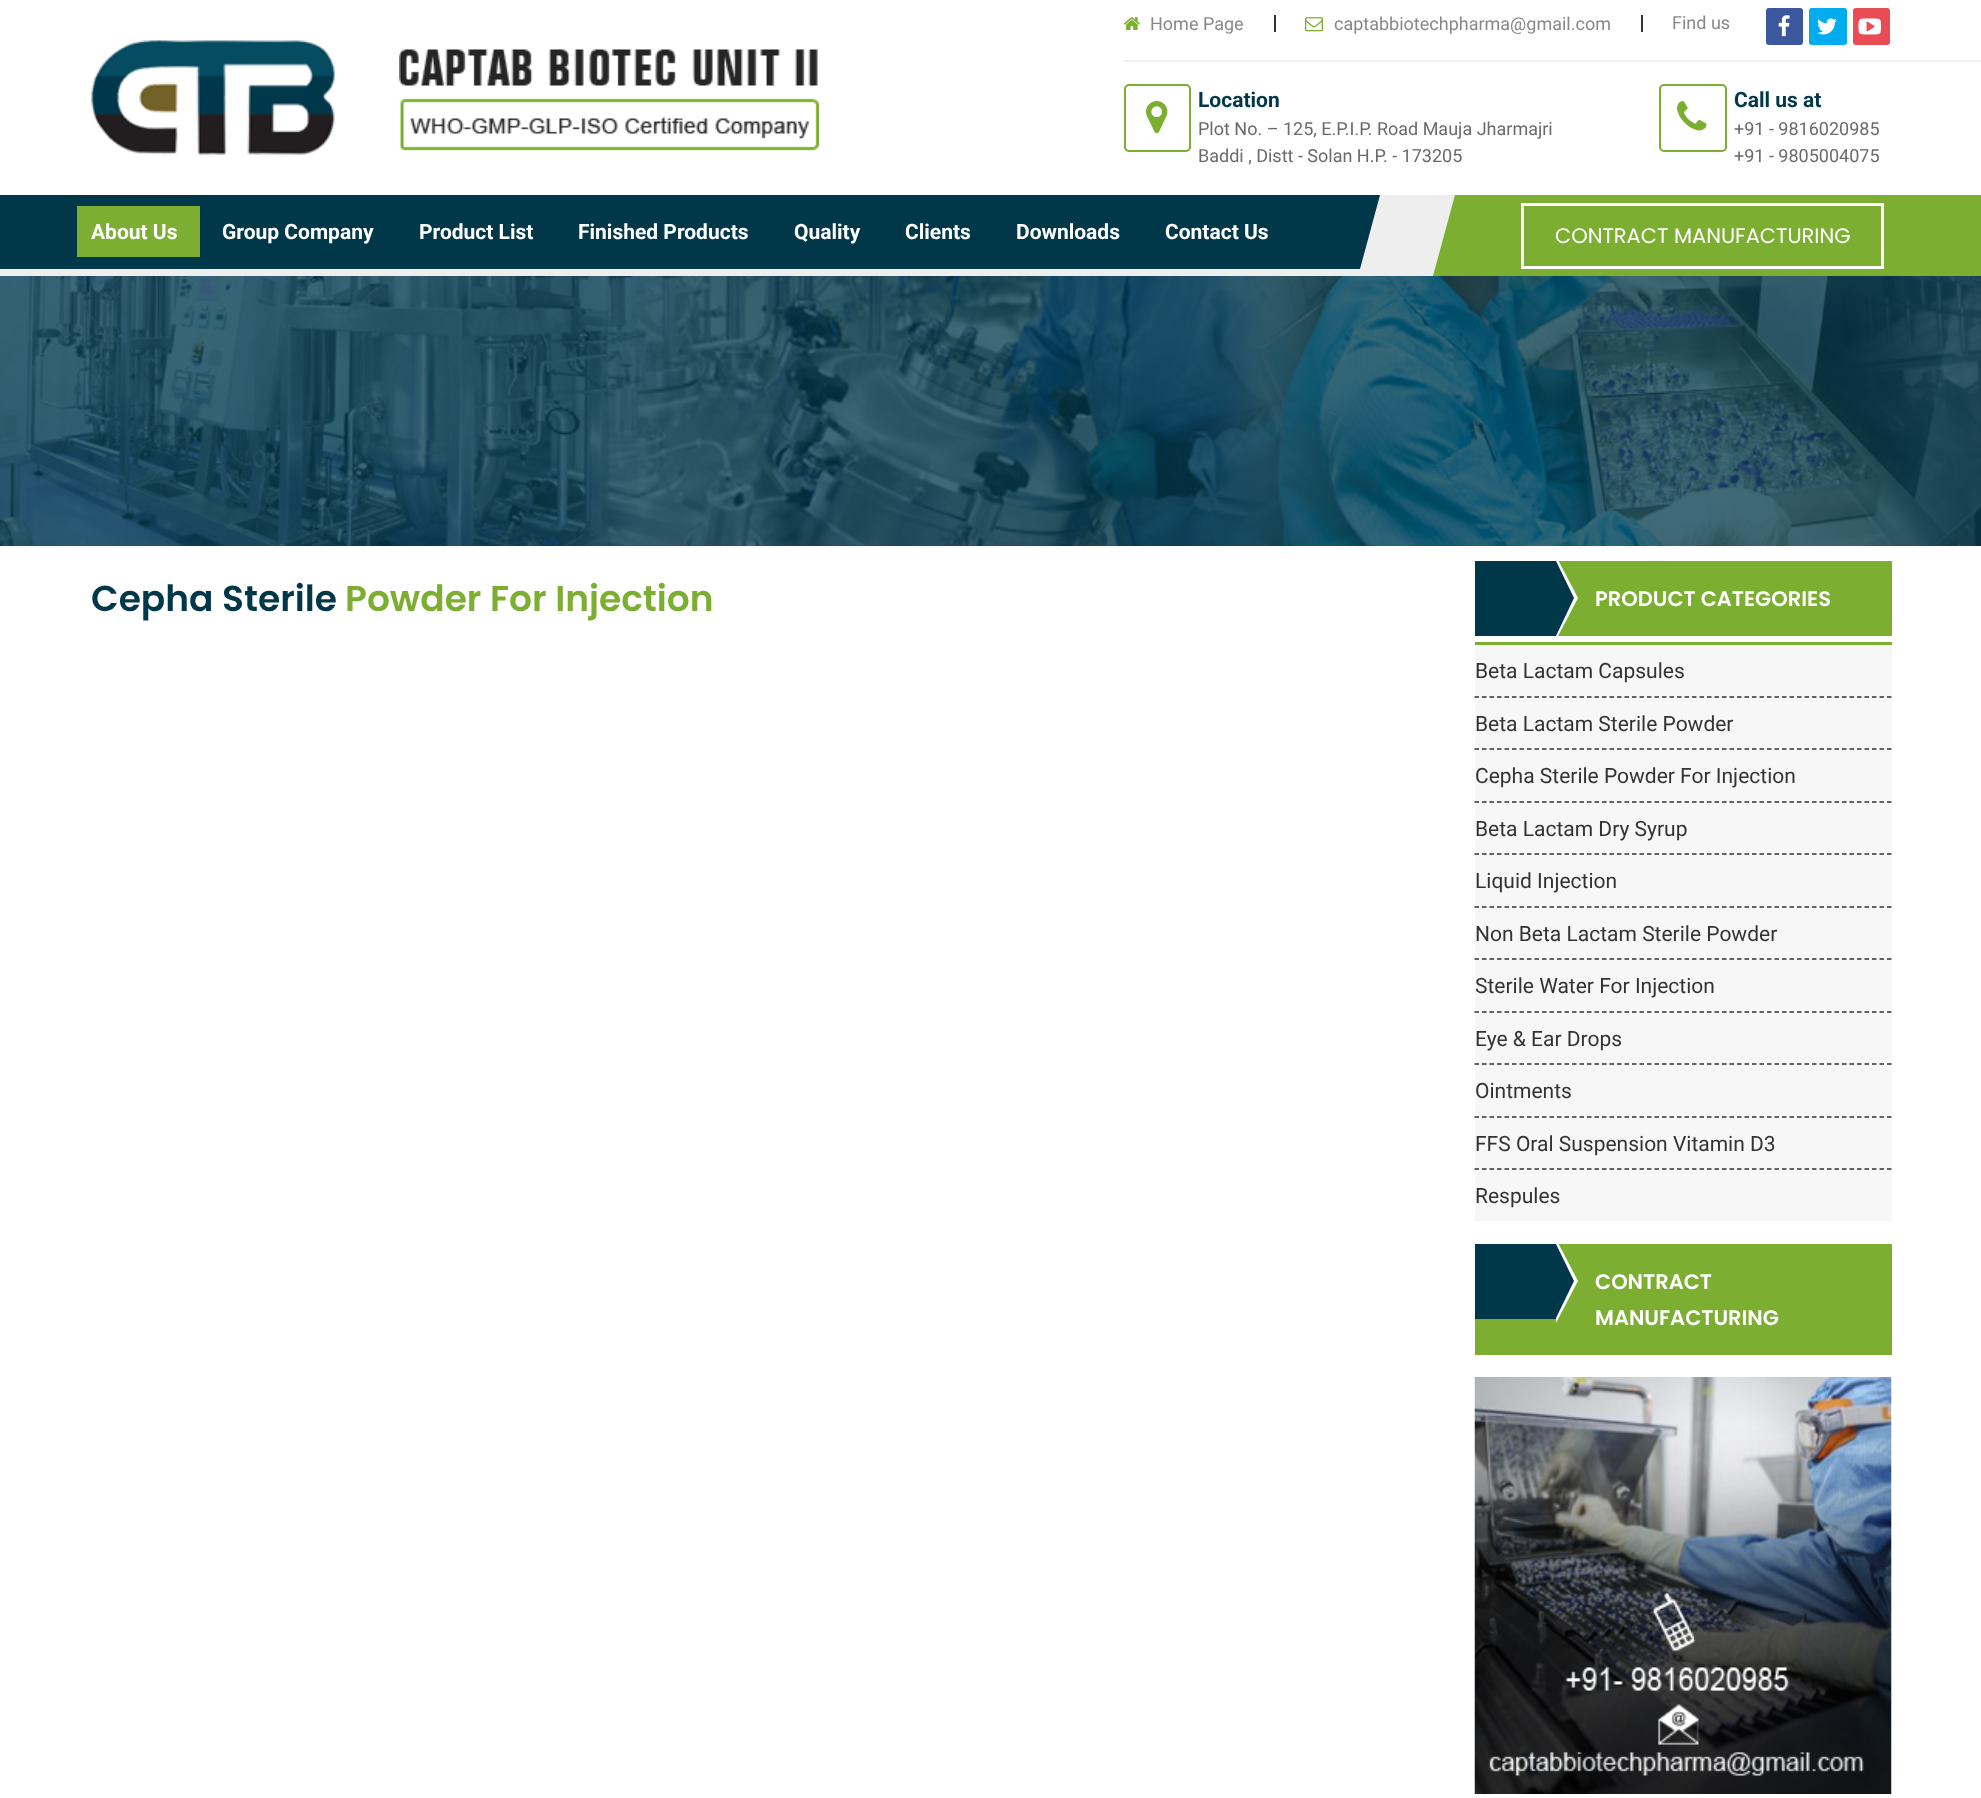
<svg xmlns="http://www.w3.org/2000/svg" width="1981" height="1798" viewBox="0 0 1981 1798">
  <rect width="100%" height="100%" fill="#ffffff"/>
  <image x="91" y="40" width="244" height="115" href="img1.png"/>
  <image x="399" y="49" width="420" height="102" href="img2.png"/>
  <rect x="1124" y="60" width="857" height="2" fill="#eeeeee"/>
  <rect x="1274" y="15" width="2" height="17" fill="#333333"/>
  <image x="1123" y="17" width="17" height="13" href="img3.png"/>
  <text x="1150" y="30" font-family="Roboto" font-size="18" fill="#888888">Home Page</text>
  <rect x="1641" y="15" width="2" height="17" fill="#333333"/>
  <image x="1305" y="17" width="18" height="15" href="img4.png"/>
  <text x="1334" y="30" font-family="Roboto" font-size="18" fill="#888888">captabbiotechpharma@gmail.com</text>
  <text x="1672" y="29" font-family="Roboto" font-size="18" fill="#888888">Find us</text>
  <rect x="1766" y="8" width="37" height="37" rx="3" fill="#3b579d"/>
  <image x="1778" y="15" width="12" height="22" href="img5.png"/>
  <rect x="1809" y="8" width="38" height="37" rx="3" fill="#00aced"/>
  <image x="1817" y="18" width="20" height="17" href="img6.png"/>
  <rect x="1853" y="8" width="37" height="37" rx="3" fill="#e94c55"/>
  <image x="1858" y="18" width="23" height="17" href="img7.png"/>
  <rect x="1125" y="85" width="65" height="66" rx="4" fill="none" stroke="#7cae31" stroke-width="2"/>
  <image x="1146" y="101" width="22" height="33" href="img8.png"/>
  <text x="1198" y="107" font-family="Roboto" font-size="21" font-weight="bold" fill="#00384a">Location</text>
  <text x="1198" y="135" font-family="Roboto" font-size="18" fill="#6a6a6a">Plot No. – 125, E.P.I.P. Road Mauja Jharmajri</text>
  <text x="1198" y="162" font-family="Roboto" font-size="18" fill="#6a6a6a">Baddi , Distt - Solan H.P. - 173205</text>
  <rect x="1660" y="85" width="66" height="66" rx="4" fill="none" stroke="#7cae31" stroke-width="2"/>
  <image x="1677" y="101" width="30" height="30" href="img9.png"/>
  <text x="1734" y="107" font-family="Roboto" font-size="21" font-weight="bold" fill="#00384a">Call us at</text>
  <text x="1734" y="135" font-family="Roboto" font-size="18" fill="#6a6a6a">+91 - 9816020985</text>
  <text x="1734" y="162" font-family="Roboto" font-size="18" fill="#6a6a6a">+91 - 9805004075</text>
  <rect x="0" y="195" width="1455" height="81" fill="#eeeeee"/>
  <path d="M-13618 195H1380L1360 269H-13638Z" fill="#00384a"/>
  <rect x="77" y="206" width="123" height="51" fill="#7cae31"/>
  <text x="91" y="239" font-family="Roboto" font-size="21" font-weight="bold" fill="#ffffff">About Us</text>
  <text x="222" y="239" font-family="Roboto" font-size="21" font-weight="bold" fill="#ffffff">Group Company</text>
  <text x="419" y="239" font-family="Roboto" font-size="21" font-weight="bold" fill="#ffffff">Product List</text>
  <text x="578" y="239" font-family="Roboto" font-size="21" font-weight="bold" fill="#ffffff">Finished Products</text>
  <text x="794" y="239" font-family="Roboto" font-size="21" font-weight="bold" fill="#ffffff">Quality</text>
  <text x="905" y="239" font-family="Roboto" font-size="21" font-weight="bold" fill="#ffffff">Clients</text>
  <text x="1016" y="239" font-family="Roboto" font-size="21" font-weight="bold" fill="#ffffff">Downloads</text>
  <text x="1165" y="239" font-family="Roboto" font-size="21" font-weight="bold" fill="#ffffff">Contact Us</text>
  <path d="M1455 195H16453L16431 276H1433Z" fill="#7cae31"/>
  <rect x="1522.5" y="204.5" width="360" height="63" fill="none" stroke="#ffffff" stroke-width="3"/>
  <text x="1555" y="243" font-family="Poppins" font-size="21" fill="#ffffff">CONTRACT MANUFACTURING</text>
  <text x="91" y="611" font-family="Poppins" font-size="36" font-weight="600" fill="#00384a">Cepha Sterile</text>
  <text x="345" y="611" font-family="Poppins" font-size="36" font-weight="600" fill="#7cae31">Powder For Injection</text>
  <rect x="1558" y="561" width="334" height="75" fill="#7cae31"/>
  <rect x="1475" y="561" width="81" height="75" fill="#00384a"/>
  <path d="M1556 640V556L1578 598Z" fill="#ffffff"/>
  <path d="M1556 636V561L1574 598Z" fill="#00384a"/>
  <text x="1595" y="606" font-family="Poppins" font-size="21" font-weight="600" fill="#ffffff">PRODUCT CATEGORIES</text>
  <rect x="1475" y="642" width="417" height="3" fill="#7cae31"/>
  <rect x="1475" y="645" width="417" height="576" fill="#f7f7f7"/>
  <path d="M1474.5 697H1891.5" fill="none" stroke="#333333" stroke-width="1.5" stroke-dasharray="4.5 3"/>
  <text x="1475" y="678" font-family="Roboto" font-size="21" fill="#333333">Beta Lactam Capsules</text>
  <path d="M1474.5 749H1891.5" fill="none" stroke="#333333" stroke-width="1.5" stroke-dasharray="4.5 3"/>
  <text x="1475" y="731" font-family="Roboto" font-size="21" fill="#333333">Beta Lactam Sterile Powder</text>
  <path d="M1474.5 802H1891.5" fill="none" stroke="#333333" stroke-width="1.5" stroke-dasharray="4.5 3"/>
  <text x="1475" y="783" font-family="Roboto" font-size="21" fill="#333333">Cepha Sterile Powder For Injection</text>
  <path d="M1474.5 854H1891.5" fill="none" stroke="#333333" stroke-width="1.5" stroke-dasharray="4.5 3"/>
  <text x="1475" y="836" font-family="Roboto" font-size="21" fill="#333333">Beta Lactam Dry Syrup</text>
  <path d="M1474.5 907H1891.5" fill="none" stroke="#333333" stroke-width="1.5" stroke-dasharray="4.5 3"/>
  <text x="1475" y="888" font-family="Roboto" font-size="21" fill="#333333">Liquid Injection</text>
  <path d="M1474.5 959H1891.5" fill="none" stroke="#333333" stroke-width="1.5" stroke-dasharray="4.5 3"/>
  <text x="1475" y="941" font-family="Roboto" font-size="21" fill="#333333">Non Beta Lactam Sterile Powder</text>
  <path d="M1474.5 1012H1891.5" fill="none" stroke="#333333" stroke-width="1.5" stroke-dasharray="4.5 3"/>
  <text x="1475" y="993" font-family="Roboto" font-size="21" fill="#333333">Sterile Water For Injection</text>
  <path d="M1474.5 1064H1891.5" fill="none" stroke="#333333" stroke-width="1.5" stroke-dasharray="4.5 3"/>
  <text x="1475" y="1046" font-family="Roboto" font-size="21" fill="#333333">Eye &amp; Ear Drops</text>
  <path d="M1474.5 1117H1891.5" fill="none" stroke="#333333" stroke-width="1.5" stroke-dasharray="4.5 3"/>
  <text x="1475" y="1098" font-family="Roboto" font-size="21" fill="#333333">Ointments</text>
  <path d="M1474.5 1169H1891.5" fill="none" stroke="#333333" stroke-width="1.5" stroke-dasharray="4.5 3"/>
  <text x="1475" y="1151" font-family="Roboto" font-size="21" fill="#333333">FFS Oral Suspension Vitamin D3</text>
  <text x="1475" y="1203" font-family="Roboto" font-size="21" fill="#333333">Respules</text>
  <rect x="1475" y="1244" width="417" height="111" fill="#7cae31"/>
  <rect x="1475" y="1244" width="81" height="75" fill="#00384a"/>
  <path d="M1556 1323V1239L1578 1281Z" fill="#ffffff"/>
  <path d="M1556 1318V1244L1574 1281Z" fill="#00384a"/>
  <text x="1595" y="1289" font-family="Poppins" font-size="21" font-weight="600" fill="#ffffff">CONTRACT</text>
  <text x="1595" y="1325" font-family="Poppins" font-size="21" font-weight="600" fill="#ffffff">MANUFACTURING</text>
  <image x="1474" y="1377" width="418" height="417" href="img10.png"/>
  <image x="0" y="276" width="1981" height="270" href="img11.png"/>
</svg>
